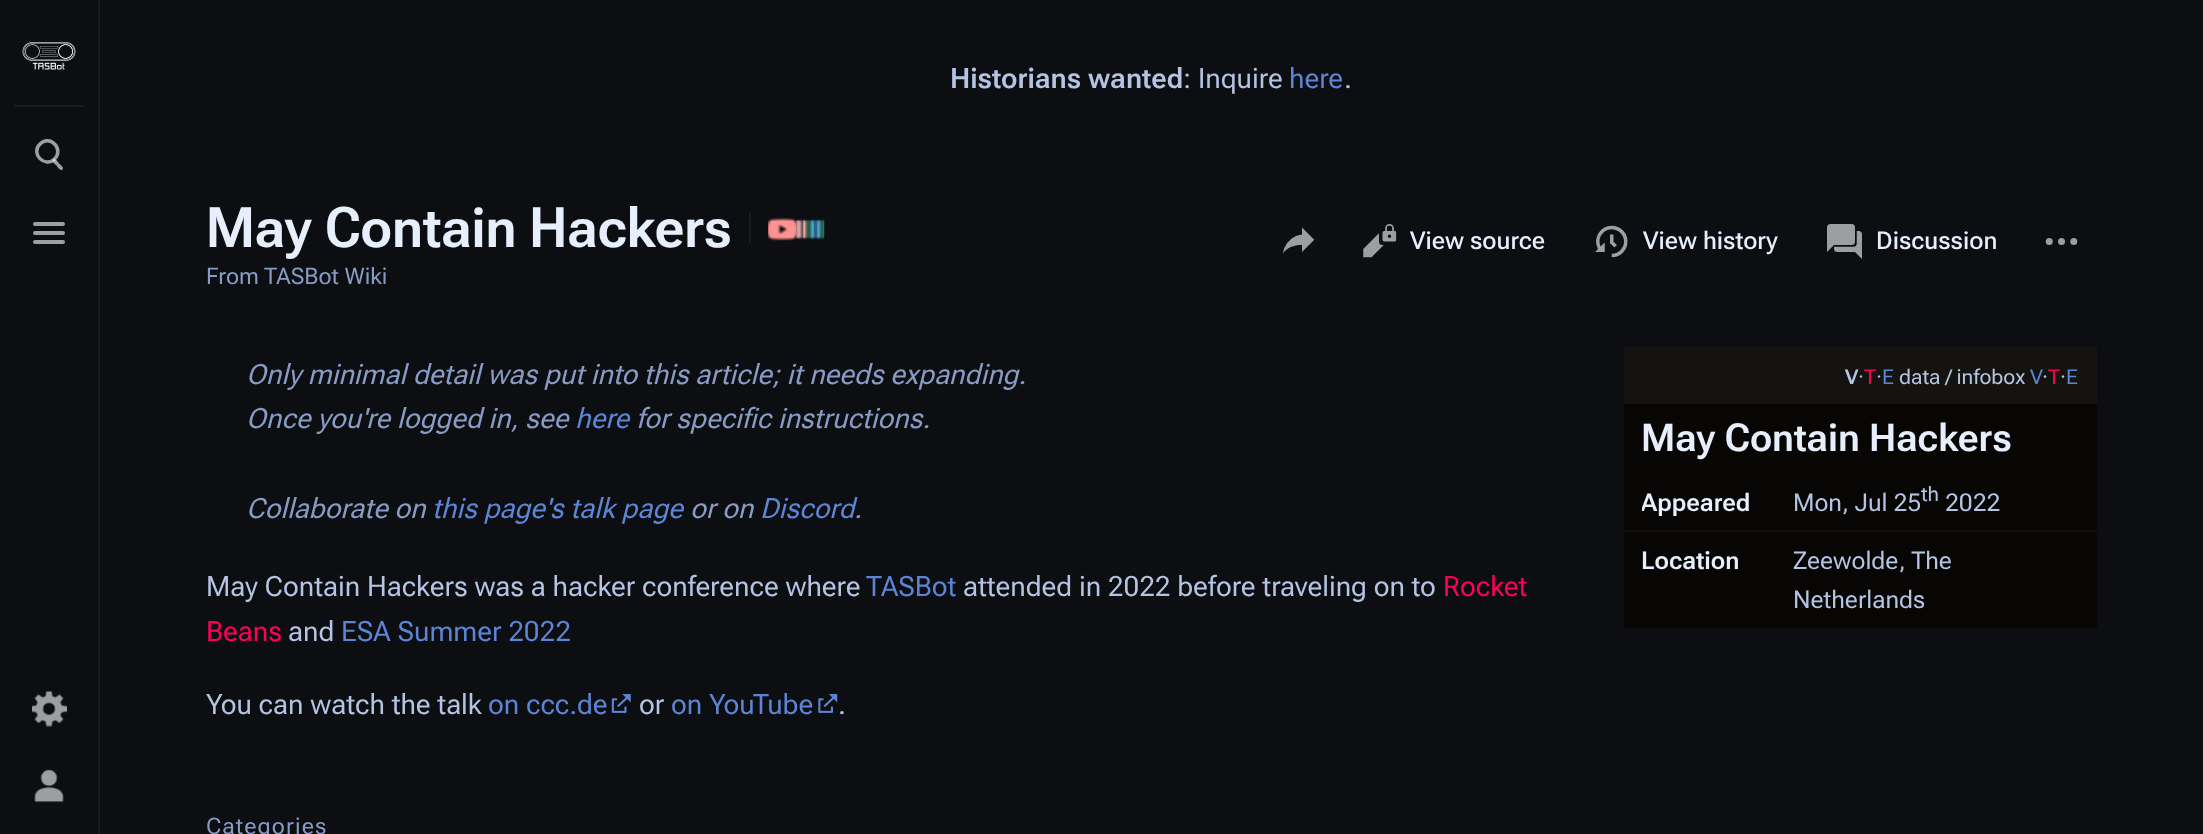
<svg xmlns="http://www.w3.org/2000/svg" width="2203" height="834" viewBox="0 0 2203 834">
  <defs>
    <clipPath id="clip1"><rect x="1642" y="483" width="134" height="39"/></clipPath>
  </defs>
  <rect width="100%" height="100%" fill="#0c0e12"/>
  <rect x="98" y="0" width="2" height="834" fill="#181a1e"/>
  <rect x="14" y="105" width="70" height="2" fill="#181a1e"/>
  <image x="22" y="42" width="54" height="28" href="img1.png"/>
  <path d="M53 159.5C55 157.5 58 162 59 163.5C60 164.5 64.5 167.5 62.5 169.5C60.5 171.5 57.5 167 56.5 165.5C55.5 164.5 51 161.5 53 159.5Z" fill="#9e9fa0"/>
  <path d="M40 144C49.5 134 64.5 149 54.5 159C45 168.5 30 153.5 40 144Z" fill="none" stroke="#ffffff" stroke-opacity="0.6" stroke-width="3.5"/>
  <rect x="33" y="222" width="32" height="4" rx="2" fill="#9e9fa0"/>
  <rect x="33" y="231" width="32" height="4" rx="2" fill="#9e9fa0"/>
  <rect x="33" y="240" width="32" height="4" rx="2" fill="#9e9fa0"/>
  <image x="32" y="691" width="35" height="36" href="img2.png"/>
  <image x="34" y="769" width="30" height="34" href="img3.png"/>
  <text x="950" y="88" font-family="Roboto Flex" font-size="28" font-weight="600" fill="#b5c4e3">Historians wanted</text>
  <text x="1183" y="88" font-family="'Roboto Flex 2'" font-size="28" fill="#b5c4e3">: Inquire</text>
  <text x="1289" y="88" font-family="'Roboto Flex 2'" font-size="28" fill="#5c85d6">here</text>
  <text x="1344" y="88" font-family="'Roboto Flex 2'" font-size="28" fill="#b5c4e3">.</text>
  <text x="206" y="247" font-family="'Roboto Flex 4'" font-size="56" font-weight="600" fill="#e8effc">May Contain Hackers</text>
  <rect x="749" y="212" width="2" height="31" fill="#181a1e"/>
  <image x="768" y="217" width="29" height="24" href="img4.png"/>
  <image x="796" y="218" width="29" height="22" href="img5.png"/>
  <text x="206" y="284" font-family="Roboto Flex" font-size="22.75" fill="#879bc5">From TASBot Wiki</text>
  <image x="1282" y="227" width="33" height="27" href="img6.png"/>
  <image x="1363" y="224" width="34" height="34" href="img7.png"/>
  <text x="1410" y="249" font-family="Roboto Flex" font-size="24.5" font-weight="500" fill="#e8effc">View source</text>
  <image x="1595" y="225" width="33" height="33" href="img8.png"/>
  <text x="1643" y="249" font-family="Roboto Flex" font-size="24.5" font-weight="500" fill="#e8effc">View history</text>
  <image x="1827" y="224" width="35" height="35" href="img9.png"/>
  <text x="1876" y="249" font-family="Roboto Flex" font-size="24.5" font-weight="500" fill="#e8effc">Discussion</text>
  <image x="2045" y="238" width="33" height="7" href="img10.png"/>
  <text x="246" y="384" font-family="Roboto Flex" font-size="28" font-style="italic" fill="#879bc5">Only minimal detail was put into this article; it needs expanding.</text>
  <text x="246" y="428" font-family="Roboto Flex" font-size="28" font-style="italic" fill="#879bc5">Once you're logged in, see</text>
  <text x="575" y="428" font-family="Roboto Flex" font-size="28" font-style="italic" fill="#5c85d6">here</text>
  <text x="636" y="428" font-family="Roboto Flex" font-size="28" font-style="italic" fill="#879bc5">for specific instructions.</text>
  <text x="246" y="518" font-family="Roboto Flex" font-size="28" font-style="italic" fill="#879bc5">Collaborate on</text>
  <text x="432" y="518" font-family="Roboto Flex" font-size="28" font-style="italic" fill="#5c85d6">this page's talk page</text>
  <text x="690" y="518" font-family="Roboto Flex" font-size="28" font-style="italic" fill="#879bc5">or on</text>
  <text x="760" y="518" font-family="Roboto Flex" font-size="28" font-style="italic" fill="#5c85d6">Discord</text>
  <text x="854" y="518" font-family="Roboto Flex" font-size="28" font-style="italic" fill="#879bc5">.</text>
  <rect x="1624" y="404" width="473" height="224" fill="#070605"/>
  <rect x="1624" y="347" width="473" height="57" fill="#15130f"/>
  <text x="1845" y="384" font-family="'Roboto Flex 2'" font-size="20.5" font-weight="600" fill="#b5c4e3">V</text>
  <text x="1858" y="384" font-family="'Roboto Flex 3'" font-size="20.5" fill="#b5c4e3">·</text>
  <text x="1864" y="384" font-family="'Roboto Flex 4'" font-size="20.5" fill="#ff0055">T</text>
  <text x="1876" y="384" font-family="'Roboto Flex 3'" font-size="20.5" fill="#b5c4e3">·</text>
  <text x="1882" y="384" font-family="'Roboto Flex 4'" font-size="20.5" fill="#5c85d6">E</text>
  <text x="1899" y="384" font-family="'Roboto Flex 4'" font-size="20.5" fill="#b5c4e3">data / infobox</text>
  <text x="2030" y="384" font-family="'Roboto Flex 4'" font-size="20.5" fill="#5c85d6">V</text>
  <text x="2042" y="384" font-family="'Roboto Flex 4'" font-size="20.5" fill="#b5c4e3">·</text>
  <text x="2048" y="384" font-family="'Roboto Flex 4'" font-size="20.5" fill="#ff0055">T</text>
  <text x="2060" y="384" font-family="'Roboto Flex 4'" font-size="20.5" fill="#b5c4e3">·</text>
  <text x="2066" y="384" font-family="'Roboto Flex 4'" font-size="20.5" fill="#5c85d6">E</text>
  <text x="1641" y="451" font-family="'Roboto Flex 3'" font-size="38.5" font-weight="600" fill="#e8effc">May Contain Hackers</text>
  <rect x="1624" y="530" width="473" height="2" fill="#131212"/>
  <g clip-path="url(#clip1)">
    <text x="1641" y="511" font-family="'Roboto Flex 2'" font-size="24.5" font-weight="600" fill="#e8effc">Appeared</text>
  </g>
  <text x="1793" y="511" font-family="'Roboto Flex 3'" font-size="24.5" fill="#b5c4e3">Mon, Jul 25</text>
  <text x="1921" y="501" font-family="'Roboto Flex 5'" font-size="20" fill="#b5c4e3">th</text>
  <text x="1945" y="511" font-family="'Roboto Flex 3'" font-size="24.5" fill="#b5c4e3">2022</text>
  <text x="1641" y="569" font-family="'Roboto Flex 2'" font-size="24.5" font-weight="600" fill="#e8effc">Location</text>
  <text x="1793" y="569" font-family="'Roboto Flex 3'" font-size="24.5" fill="#b5c4e3">Zeewolde, The</text>
  <text x="1793" y="608" font-family="'Roboto Flex 3'" font-size="24.5" fill="#b5c4e3">Netherlands</text>
  <text x="206" y="596" font-family="'Roboto Flex 2'" font-size="28" fill="#b5c4e3">May Contain Hackers was a hacker conference where</text>
  <text x="866" y="596" font-family="'Roboto Flex 2'" font-size="28" fill="#5c85d6">TASBot</text>
  <text x="963" y="596" font-family="'Roboto Flex 2'" font-size="28" fill="#b5c4e3">attended in 2022 before traveling on to</text>
  <text x="1443" y="596" font-family="'Roboto Flex 2'" font-size="28" fill="#ff0055">Rocket</text>
  <text x="206" y="641" font-family="'Roboto Flex 2'" font-size="28" fill="#ff0055">Beans</text>
  <text x="288" y="641" font-family="'Roboto Flex 2'" font-size="28" fill="#b5c4e3">and</text>
  <text x="341" y="641" font-family="'Roboto Flex 2'" font-size="28" fill="#5c85d6">ESA Summer 2022</text>
  <text x="206" y="714" font-family="'Roboto Flex 2'" font-size="28" fill="#b5c4e3">You can watch the talk</text>
  <text x="488" y="714" font-family="'Roboto Flex 2'" font-size="28" fill="#5c85d6">on ccc.de</text>
  <image x="611" y="694" width="20" height="19" href="img11.png"/>
  <text x="639" y="714" font-family="'Roboto Flex 2'" font-size="28" fill="#b5c4e3">or</text>
  <text x="671" y="714" font-family="'Roboto Flex 2'" font-size="28" fill="#5c85d6">on YouTube</text>
  <image x="818" y="694" width="20" height="19" href="img12.png"/>
  <text x="838" y="714" font-family="'Roboto Flex 2'" font-size="28" fill="#b5c4e3">.</text>
  <text x="206" y="834" font-family="Roboto Flex" font-size="22.75" letter-spacing="1.1" fill="#879bc5">Categories</text>
</svg>
